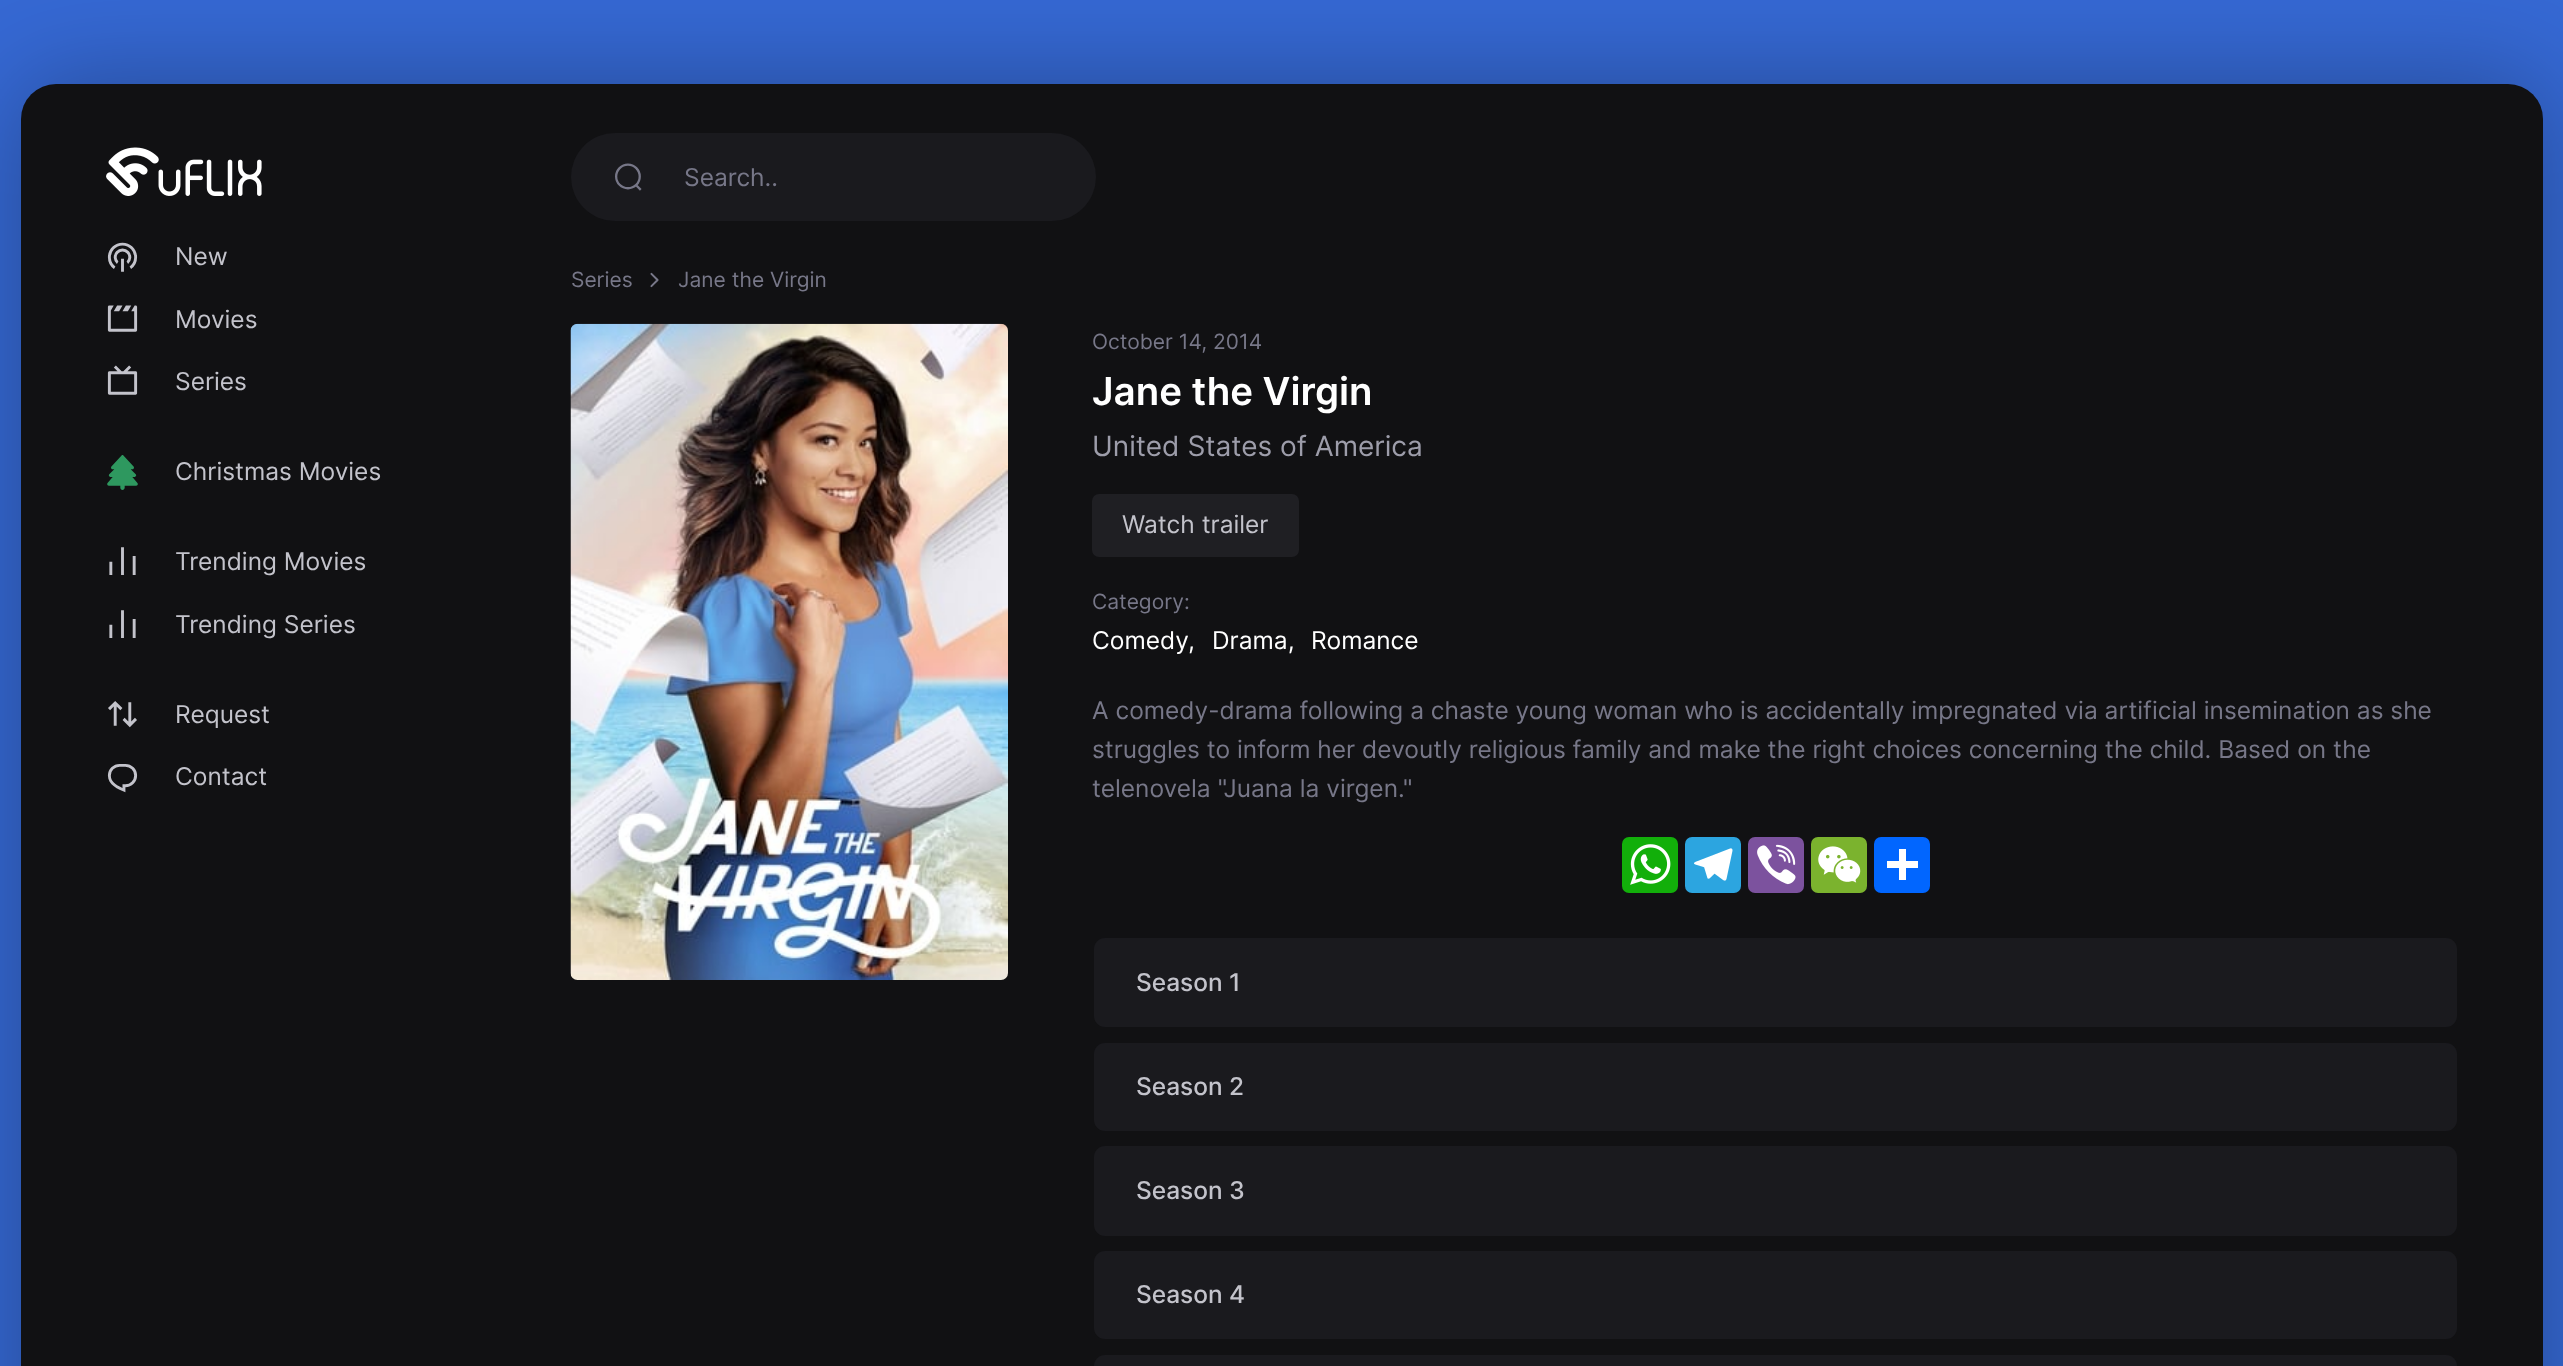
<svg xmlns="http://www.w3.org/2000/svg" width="2563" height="1366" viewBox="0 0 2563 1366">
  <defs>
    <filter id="blur1" x="-50%" y="-200%" width="200%" height="500%"><feGaussianBlur stdDeviation="52.5"/></filter>
  </defs>
  <rect width="100%" height="100%" fill="#3568d3"/>
  <rect x="21" y="84" width="2522" height="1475" rx="35" fill="#111113" fill-opacity="0.3" filter="url(#blur1)"/>
  <rect x="21" y="84" width="2522" height="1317" rx="35" fill="#111113"/>
  <image x="106" y="147" width="156" height="49" href="img1.png"/>
  <image x="107" y="242" width="31" height="30" href="img2.png"/>
  <text x="175" y="265" font-family="Inter" font-size="24.5" fill="#c3c3cb">New</text>
  <image x="107" y="305" width="31" height="27" href="img3.png"/>
  <text x="175" y="328" font-family="Inter" font-size="24.5" fill="#c3c3cb">Movies</text>
  <image x="107" y="365" width="31" height="30" href="img4.png"/>
  <text x="175" y="390" font-family="Inter" font-size="24.5" fill="#c3c3cb">Series</text>
  <image x="107" y="455" width="31" height="35" href="img5.png"/>
  <text x="175" y="480" font-family="Inter" font-size="24.5" fill="#c3c3cb">Christmas Movies</text>
  <image x="109" y="547" width="27" height="28" href="img6.png"/>
  <text x="175" y="570" font-family="Inter" font-size="24.5" fill="#c3c3cb">Trending Movies</text>
  <image x="109" y="610" width="27" height="28" href="img6.png"/>
  <text x="175" y="633" font-family="Inter" font-size="24.5" fill="#c3c3cb">Trending Series</text>
  <image x="108" y="701" width="29" height="27" href="img7.png"/>
  <text x="175" y="723" font-family="Inter" font-size="24.5" fill="#c3c3cb">Request</text>
  <image x="107" y="764" width="31" height="29" href="img8.png"/>
  <text x="175" y="785" font-family="Inter" font-size="24.5" fill="#c3c3cb">Contact</text>
  <rect x="571" y="133" width="525" height="88" rx="44" fill="#1a1a1e"/>
  <image x="615" y="163" width="27" height="28" href="img9.png"/>
  <text x="684" y="186" font-family="Inter" font-size="24.5" fill="#777788">Search..</text>
  <text x="571" y="287" font-family="Inter" font-size="21" fill="#777788">Series</text>
  <image x="650" y="272" width="9" height="16" href="img10.png"/>
  <text x="678" y="287" font-family="Inter" font-size="21" fill="#777788">Jane the Virgin</text>
  <image x="570" y="323" width="438" height="657" href="img11.png"/>
  <text x="1092" y="349" font-family="Inter" font-size="21" fill="#777788">October 14, 2014</text>
  <text x="1092" y="405" font-family="Inter" font-size="38.5" font-weight="600" fill="#ffffff">Jane the Virgin</text>
  <text x="1092" y="456" font-family="Inter" font-size="28" fill="#9d9daa">United States of America</text>
  <rect x="1092" y="494" width="207" height="63" rx="7" fill="#1f1f23"/>
  <text x="1122" y="533" font-family="Inter" font-size="24.5" fill="#c3c3cb">Watch trailer</text>
  <text x="1092" y="609" font-family="Inter" font-size="21" fill="#777788">Category:</text>
  <text x="1092" y="649" font-family="Inter" font-size="24.5" fill="#ffffff">Comedy,</text>
  <text x="1212" y="649" font-family="Inter" font-size="24.5" fill="#ffffff">Drama,</text>
  <text x="1311" y="649" font-family="Inter" font-size="24.5" fill="#ffffff">Romance</text>
  <text x="1092" y="719" font-family="Inter" font-size="24.5" fill="#777788">A comedy-drama following a chaste young woman who is accidentally impregnated via artificial insemination as she</text>
  <text x="1092" y="758" font-family="Inter" font-size="24.5" fill="#777788">struggles to inform her devoutly religious family and make the right choices concerning the child. Based on the</text>
  <text x="1092" y="797" font-family="Inter" font-size="24.5" fill="#777788">telenovela "Juana la virgen."</text>
  <rect x="1622" y="837" width="56" height="56" rx="7" fill="#12af0a"/>
  <image x="1630" y="844" width="41" height="41" href="img12.png"/>
  <rect x="1685" y="837" width="56" height="56" rx="7" fill="#2ca5e0"/>
  <image x="1694" y="848" width="39" height="33" href="img13.png"/>
  <rect x="1748" y="837" width="56" height="56" rx="7" fill="#7c529e"/>
  <image x="1757" y="844" width="39" height="41" href="img14.png"/>
  <rect x="1811" y="837" width="56" height="56" rx="7" fill="#7bb32e"/>
  <image x="1818" y="846" width="43" height="37" href="img15.png"/>
  <rect x="1874" y="837" width="56" height="56" rx="7" fill="#0166ff"/>
  <rect x="1899" y="849" width="7" height="31" fill="#ffffff"/>
  <rect x="1887" y="861" width="31" height="7" fill="#ffffff"/>
  <rect x="1094" y="938" width="1363" height="89" rx="11" fill="#1a1a1e"/>
  <text x="1136" y="991" font-family="Inter" font-size="24.5" font-weight="500" fill="#c3c3cb">Season 1</text>
  <rect x="1094" y="1043" width="1363" height="88" rx="11" fill="#1a1a1e"/>
  <text x="1136" y="1095" font-family="Inter" font-size="24.5" font-weight="500" fill="#c3c3cb">Season 2</text>
  <rect x="1094" y="1146" width="1363" height="90" rx="11" fill="#1a1a1e"/>
  <text x="1136" y="1199" font-family="Inter" font-size="24.5" font-weight="500" fill="#c3c3cb">Season 3</text>
  <rect x="1094" y="1251" width="1363" height="88" rx="11" fill="#1a1a1e"/>
  <text x="1136" y="1303" font-family="Inter" font-size="24.5" font-weight="500" fill="#c3c3cb">Season 4</text>
  <rect x="1094" y="1355" width="1363" height="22" rx="11" fill="#1a1a1e"/>
</svg>
